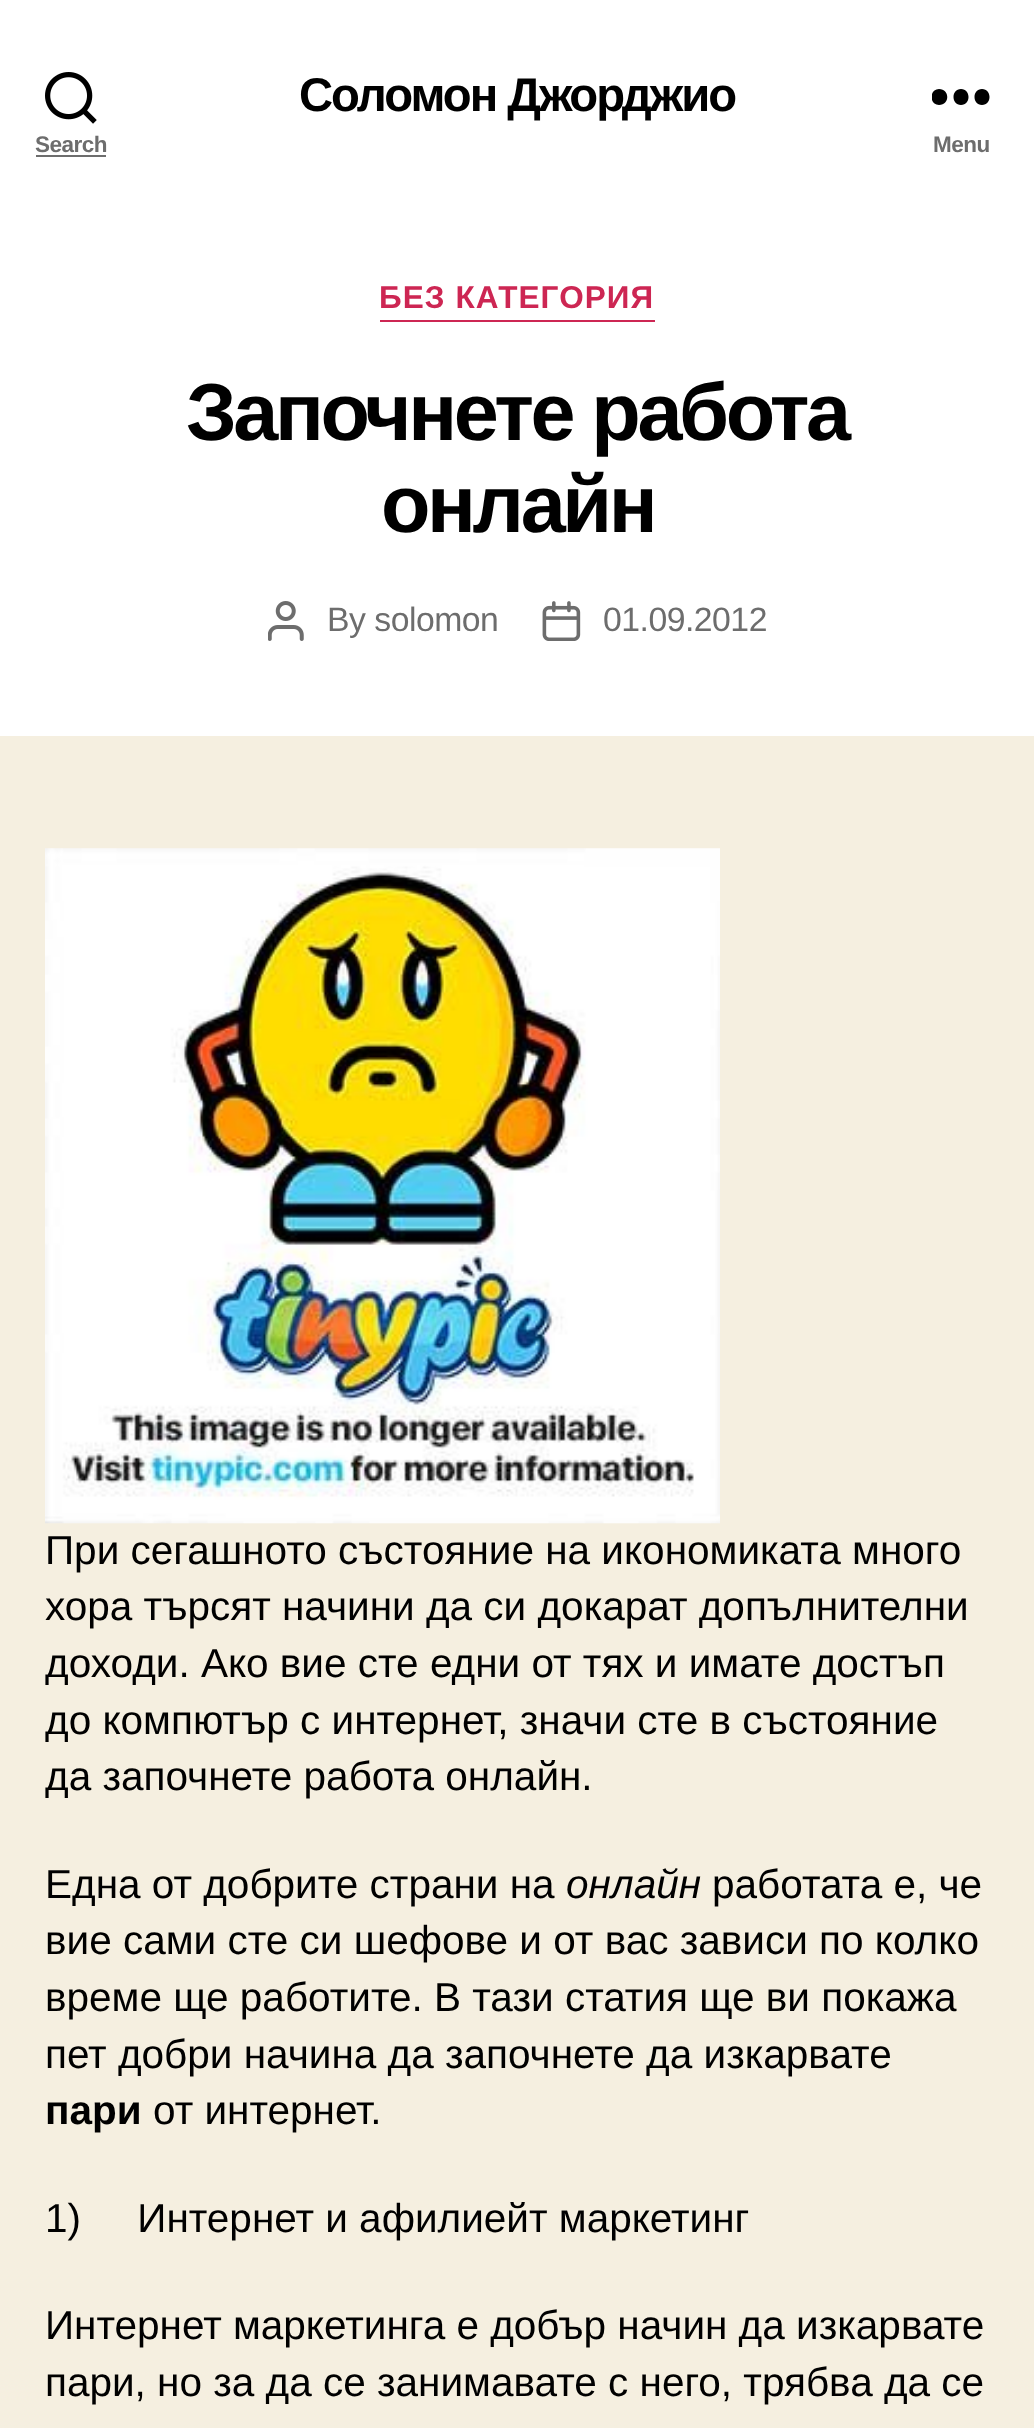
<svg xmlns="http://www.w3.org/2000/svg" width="1034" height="2428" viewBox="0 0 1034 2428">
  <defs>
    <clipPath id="clip1"><rect x="932" y="88" width="58" height="18"/></clipPath>
  </defs>
  <rect width="100%" height="100%" fill="#f5efe0"/>
  <rect x="0" y="0" width="1034" height="736" fill="#ffffff"/>
  <text x="299" y="111" font-family="Liberation Sans" font-size="47.25" font-weight="bold" letter-spacing="-2" fill="#000000">Соломон Джорджио</text>
  <image x="45" y="72" width="52" height="52" href="img1.png"/>
  <text x="35" y="152" font-family="Liberation Sans" font-size="22.5" font-weight="bold" letter-spacing="-0.5" fill="#6d6d6d">Search</text>
  <rect x="36" y="155" width="70" height="2" fill="#6d6d6d"/>
  <g clip-path="url(#clip1)">
    <path d="M939 105C929 105 929 89 939 89C950 89 950 105 939 105ZM961 105C951 105 951 89 961 89C971 89 971 105 961 105ZM982 105C972 105 972 89 982 89C992 89 992 105 982 105Z" fill="#000000" fill-rule="evenodd"/>
  </g>
  <text x="933" y="152" font-family="Liberation Sans" font-size="22.5" font-weight="bold" letter-spacing="-0.5" fill="#6d6d6d">Menu</text>
  <rect x="380" y="320" width="275" height="2" fill="#cd2653"/>
  <text x="379" y="308" font-family="Liberation Sans" font-size="31.5" font-weight="bold" letter-spacing="1.1" fill="#cd2653">БЕЗ КАТЕГОРИЯ</text>
  <text x="186" y="440" font-family="Liberation Sans" font-size="81" font-weight="bold" letter-spacing="-3.4" fill="#000000">Започнете работа</text>
  <text x="381" y="532" font-family="Liberation Sans" font-size="81" font-weight="bold" letter-spacing="-3.4" fill="#000000">онлайн</text>
  <image x="268" y="601" width="36" height="40" href="img2.png"/>
  <text x="327" y="631" font-family="Liberation Sans" font-size="33.75" letter-spacing="-0.5" fill="#6d6d6d">By solomon</text>
  <image x="542" y="601" width="39" height="40" href="img3.png"/>
  <text x="603" y="631" font-family="Liberation Sans" font-size="33.75" letter-spacing="-0.5" fill="#6d6d6d">01.09.2012</text>
  <image x="45" y="848" width="675" height="676" href="img4.png"/>
  <text x="45" y="1564" font-family="Liberation Sans" font-size="40.5" fill="#000000">При сегашното състояние на икономиката много</text>
  <text x="45" y="1620" font-family="Liberation Sans" font-size="40.5" fill="#000000">хора търсят начини да си докарат допълнителни</text>
  <text x="45" y="1677" font-family="Liberation Sans" font-size="40.5" fill="#000000">доходи. Ако вие сте едни от тях и имате достъп</text>
  <text x="45" y="1734" font-family="Liberation Sans" font-size="40.5" fill="#000000">до компютър с интернет, значи сте в състояние</text>
  <text x="45" y="1790" font-family="Liberation Sans" font-size="40.5" fill="#000000">да започнете работа онлайн.</text>
  <text x="45" y="1898" font-family="Liberation Sans" font-size="40.5" fill="#000000">Една от добрите страни на</text>
  <text x="566" y="1898" font-family="Liberation Sans" font-size="40.5" font-style="italic" fill="#000000">онлайн</text>
  <text x="712" y="1898" font-family="Liberation Sans" font-size="40.5" fill="#000000">работата е, че</text>
  <text x="45" y="1954" font-family="Liberation Sans" font-size="40.5" fill="#000000">вие сами сте си шефове и от вас зависи по колко</text>
  <text x="45" y="2011" font-family="Liberation Sans" font-size="40.5" fill="#000000">време ще работите. В тази статия ще ви покажа</text>
  <text x="45" y="2068" font-family="Liberation Sans" font-size="40.5" fill="#000000">пет добри начина да започнете да изкарвате</text>
  <text x="45" y="2124" font-family="Liberation Sans" font-size="40.5" font-weight="bold" fill="#000000">пари</text>
  <text x="153" y="2124" font-family="Liberation Sans" font-size="40.5" fill="#000000">от интернет.</text>
  <text x="45" y="2232" font-family="Liberation Sans" font-size="40.5" fill="#000000" xml:space="preserve">1)     Интернет и афилиейт маркетинг</text>
  <text x="45" y="2339" font-family="Liberation Sans" font-size="40.5" fill="#000000">Интернет маркетинга е добър начин да изкарвате</text>
  <text x="45" y="2396" font-family="Liberation Sans" font-size="40.5" fill="#000000">пари, но за да се занимавате с него, трябва да се</text>
</svg>
